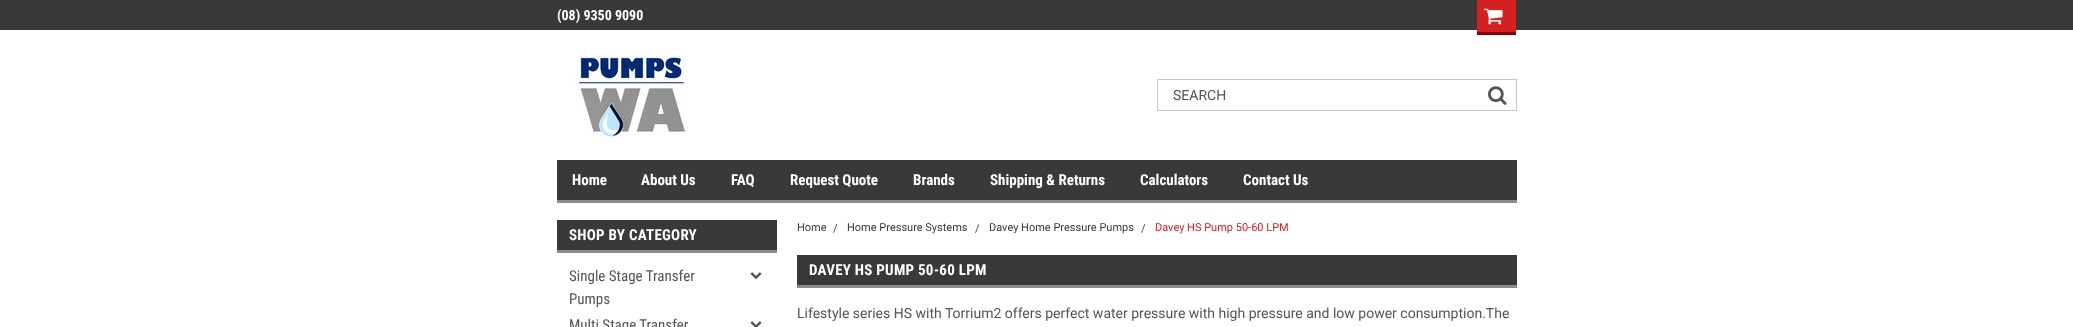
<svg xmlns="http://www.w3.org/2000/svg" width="2073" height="327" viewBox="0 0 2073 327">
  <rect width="100%" height="100%" fill="#ffffff"/>
  <rect x="0" y="0" width="2073" height="30" fill="#393939"/>
  <text x="557" y="20" font-family="Roboto Condensed" font-size="14" font-weight="bold" fill="#ffffff">(08) 9350 9090</text>
  <rect x="1477" y="0" width="39" height="32" fill="#d42020"/>
  <rect x="1477" y="32" width="39" height="3" fill="#860109"/>
  <image x="1484" y="8" width="19" height="17" href="img1.png"/>
  <image x="574" y="53" width="111" height="88" href="img2.png"/>
  <rect x="1157.5" y="79.5" width="359" height="31" fill="none" stroke="#cac9c9"/>
  <text x="1173" y="100" font-family="Roboto" font-size="14" fill="#545454">SEARCH</text>
  <image x="1488" y="86" width="19" height="19" href="img3.png"/>
  <rect x="557" y="160" width="960" height="40" fill="#393939"/>
  <rect x="557" y="200" width="960" height="3" fill="#8b8b8b"/>
  <text x="572" y="185" font-family="Roboto Condensed" font-size="15" font-weight="bold" fill="#ffffff">Home</text>
  <text x="641" y="185" font-family="Roboto Condensed" font-size="15" font-weight="bold" fill="#ffffff">About Us</text>
  <text x="731" y="185" font-family="Roboto Condensed" font-size="15" font-weight="bold" fill="#ffffff">FAQ</text>
  <text x="790" y="185" font-family="Roboto Condensed" font-size="15" font-weight="bold" fill="#ffffff">Request Quote</text>
  <text x="913" y="185" font-family="Roboto Condensed" font-size="15" font-weight="bold" fill="#ffffff">Brands</text>
  <text x="990" y="185" font-family="Roboto Condensed" font-size="15" font-weight="bold" fill="#ffffff">Shipping &amp; Returns</text>
  <text x="1140" y="185" font-family="Roboto Condensed" font-size="15" font-weight="bold" fill="#ffffff">Calculators</text>
  <text x="1243" y="185" font-family="Roboto Condensed" font-size="15" font-weight="bold" fill="#ffffff">Contact Us</text>
  <rect x="557" y="220" width="220" height="30" fill="#393939"/>
  <rect x="557" y="250" width="220" height="3" fill="#8b8b8b"/>
  <text x="569" y="240" font-family="Roboto Condensed" font-size="15" font-weight="bold" letter-spacing="0.25" fill="#ffffff">SHOP BY CATEGORY</text>
  <text x="569" y="281" font-family="Roboto Condensed" font-size="15" fill="#545454">Single Stage Transfer</text>
  <text x="569" y="304" font-family="Roboto Condensed" font-size="15" fill="#545454">Pumps</text>
  <image x="750" y="272" width="12" height="8" href="img4.png"/>
  <text x="569" y="330" font-family="Roboto Condensed" font-size="15" fill="#545454">Multi Stage Transfer</text>
  <image x="750" y="321" width="12" height="6" href="img5.png"/>
  <text x="797" y="231" font-family="Roboto" font-size="11" fill="#393939">Home</text>
  <text x="833" y="232" font-family="Roboto" font-size="11" fill="#393939">/</text>
  <text x="847" y="231" font-family="Roboto" font-size="11" fill="#393939">Home Pressure Systems</text>
  <text x="975" y="232" font-family="Roboto" font-size="11" fill="#393939">/</text>
  <text x="989" y="231" font-family="Roboto" font-size="11" fill="#393939">Davey Home Pressure Pumps</text>
  <text x="1141" y="232" font-family="Roboto" font-size="11" fill="#393939">/</text>
  <text x="1155" y="231" font-family="Roboto" font-size="11" fill="#d42020">Davey HS Pump 50-60 LPM</text>
  <rect x="797" y="255" width="720" height="30" fill="#393939"/>
  <rect x="797" y="285" width="720" height="3" fill="#8b8b8b"/>
  <text x="809" y="275" font-family="Roboto Condensed" font-size="15" font-weight="bold" letter-spacing="0.25" fill="#ffffff">DAVEY HS PUMP 50-60 LPM</text>
  <text x="797" y="318" font-family="Roboto" font-size="14" fill="#545454">Lifestyle series HS with Torrium2 offers perfect water pressure with high pressure and low power consumption.The</text>
</svg>
